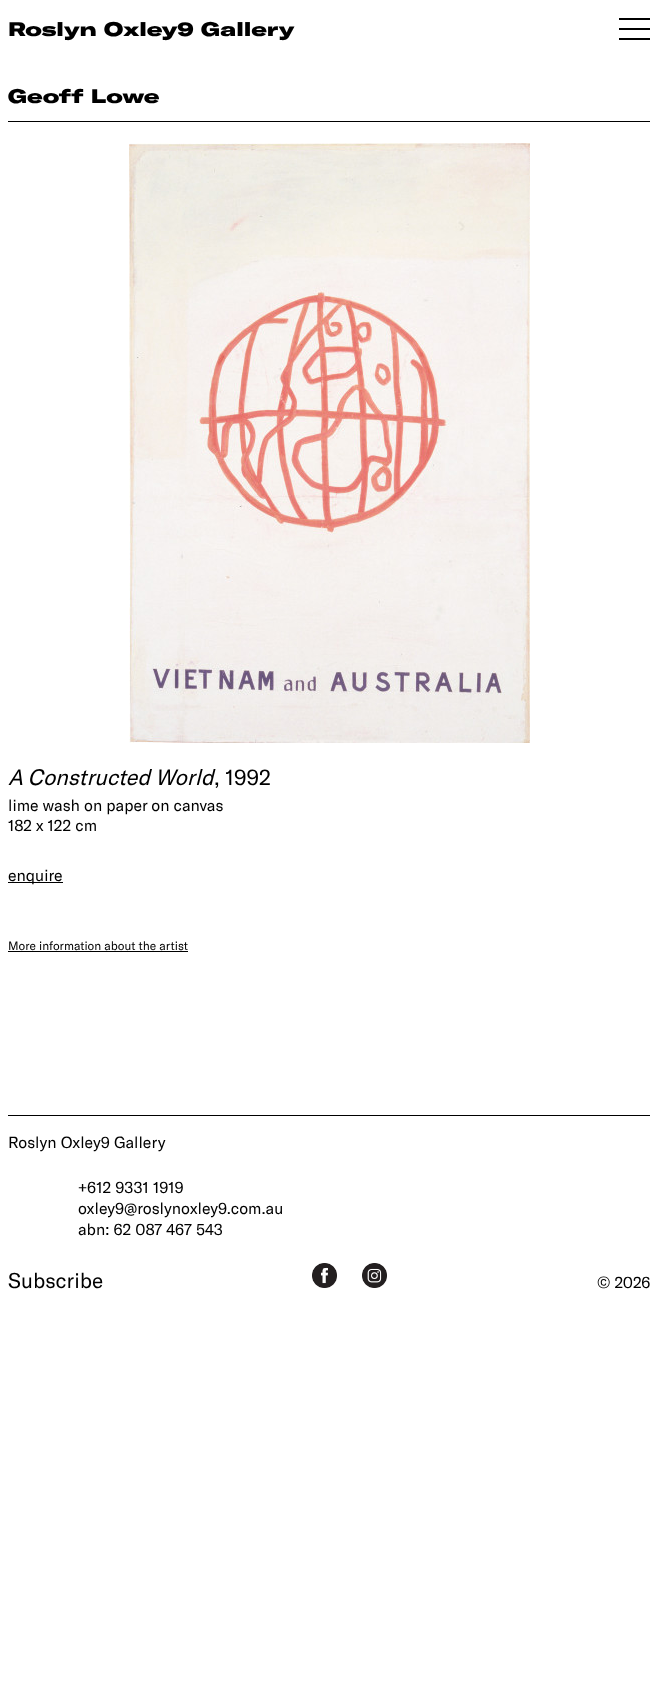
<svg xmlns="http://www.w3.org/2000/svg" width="658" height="1706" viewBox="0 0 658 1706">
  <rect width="100%" height="100%" fill="#ffffff"/>
  <text x="8" y="36" font-family="GT America" font-size="19.25" font-weight="900" fill="#000000">Roslyn Oxley9 Gallery</text>
  <rect x="619" y="18" width="31" height="2" fill="#000000"/>
  <rect x="619" y="28" width="31" height="2" fill="#000000"/>
  <rect x="619" y="38" width="31" height="2" fill="#000000"/>
  <rect x="8" y="121" width="642" height="1" fill="#000000"/>
  <text x="8" y="103" font-family="GT America" font-size="19.25" font-weight="900" fill="#000000">Geoff Lowe</text>
  <image x="129" y="143" width="401" height="600" href="img1.png"/>
  <text x="8" y="785" font-family="GT America" font-size="22" font-style="italic" fill="#000000">A Constructed World</text>
  <text x="214" y="785" font-family="GT America" font-size="22" fill="#000000">, 1992</text>
  <text x="8" y="811" font-family="GT America" font-size="16" fill="#000000">lime wash on paper on canvas</text>
  <text x="8" y="831" font-family="GT America" font-size="16" fill="#000000">182 x 122 cm</text>
  <rect x="8" y="882" width="55" height="1" fill="#000000"/>
  <text x="8" y="881" font-family="GT America" font-size="16" fill="#000000">enquire</text>
  <text x="8" y="950" font-family="GT America" font-size="12" fill="#000000">More information about the artist</text>
  <rect x="8" y="951" width="180" height="1" fill="#000000"/>
  <rect x="8" y="1115" width="642" height="1" fill="#000000"/>
  <text x="8" y="1148" font-family="GT America" font-size="16" fill="#000000">Roslyn Oxley9 Gallery</text>
  <text x="78" y="1193" font-family="GT America" font-size="16" fill="#000000">+612 9331 1919</text>
  <text x="78" y="1214" font-family="GT America" font-size="16" fill="#000000">oxley9@roslynoxley9.com.au</text>
  <text x="78" y="1235" font-family="GT America" font-size="16" fill="#000000">abn: 62 087 467 543</text>
  <text x="8" y="1288" font-family="GT America" font-size="21" fill="#000000">Subscribe</text>
  <image x="312" y="1263" width="25" height="25" href="img2.png"/>
  <image x="362" y="1263" width="25" height="25" href="img3.png"/>
  <text x="597" y="1288" font-family="GT America" font-size="16" fill="#000000">© 2026</text>
</svg>
